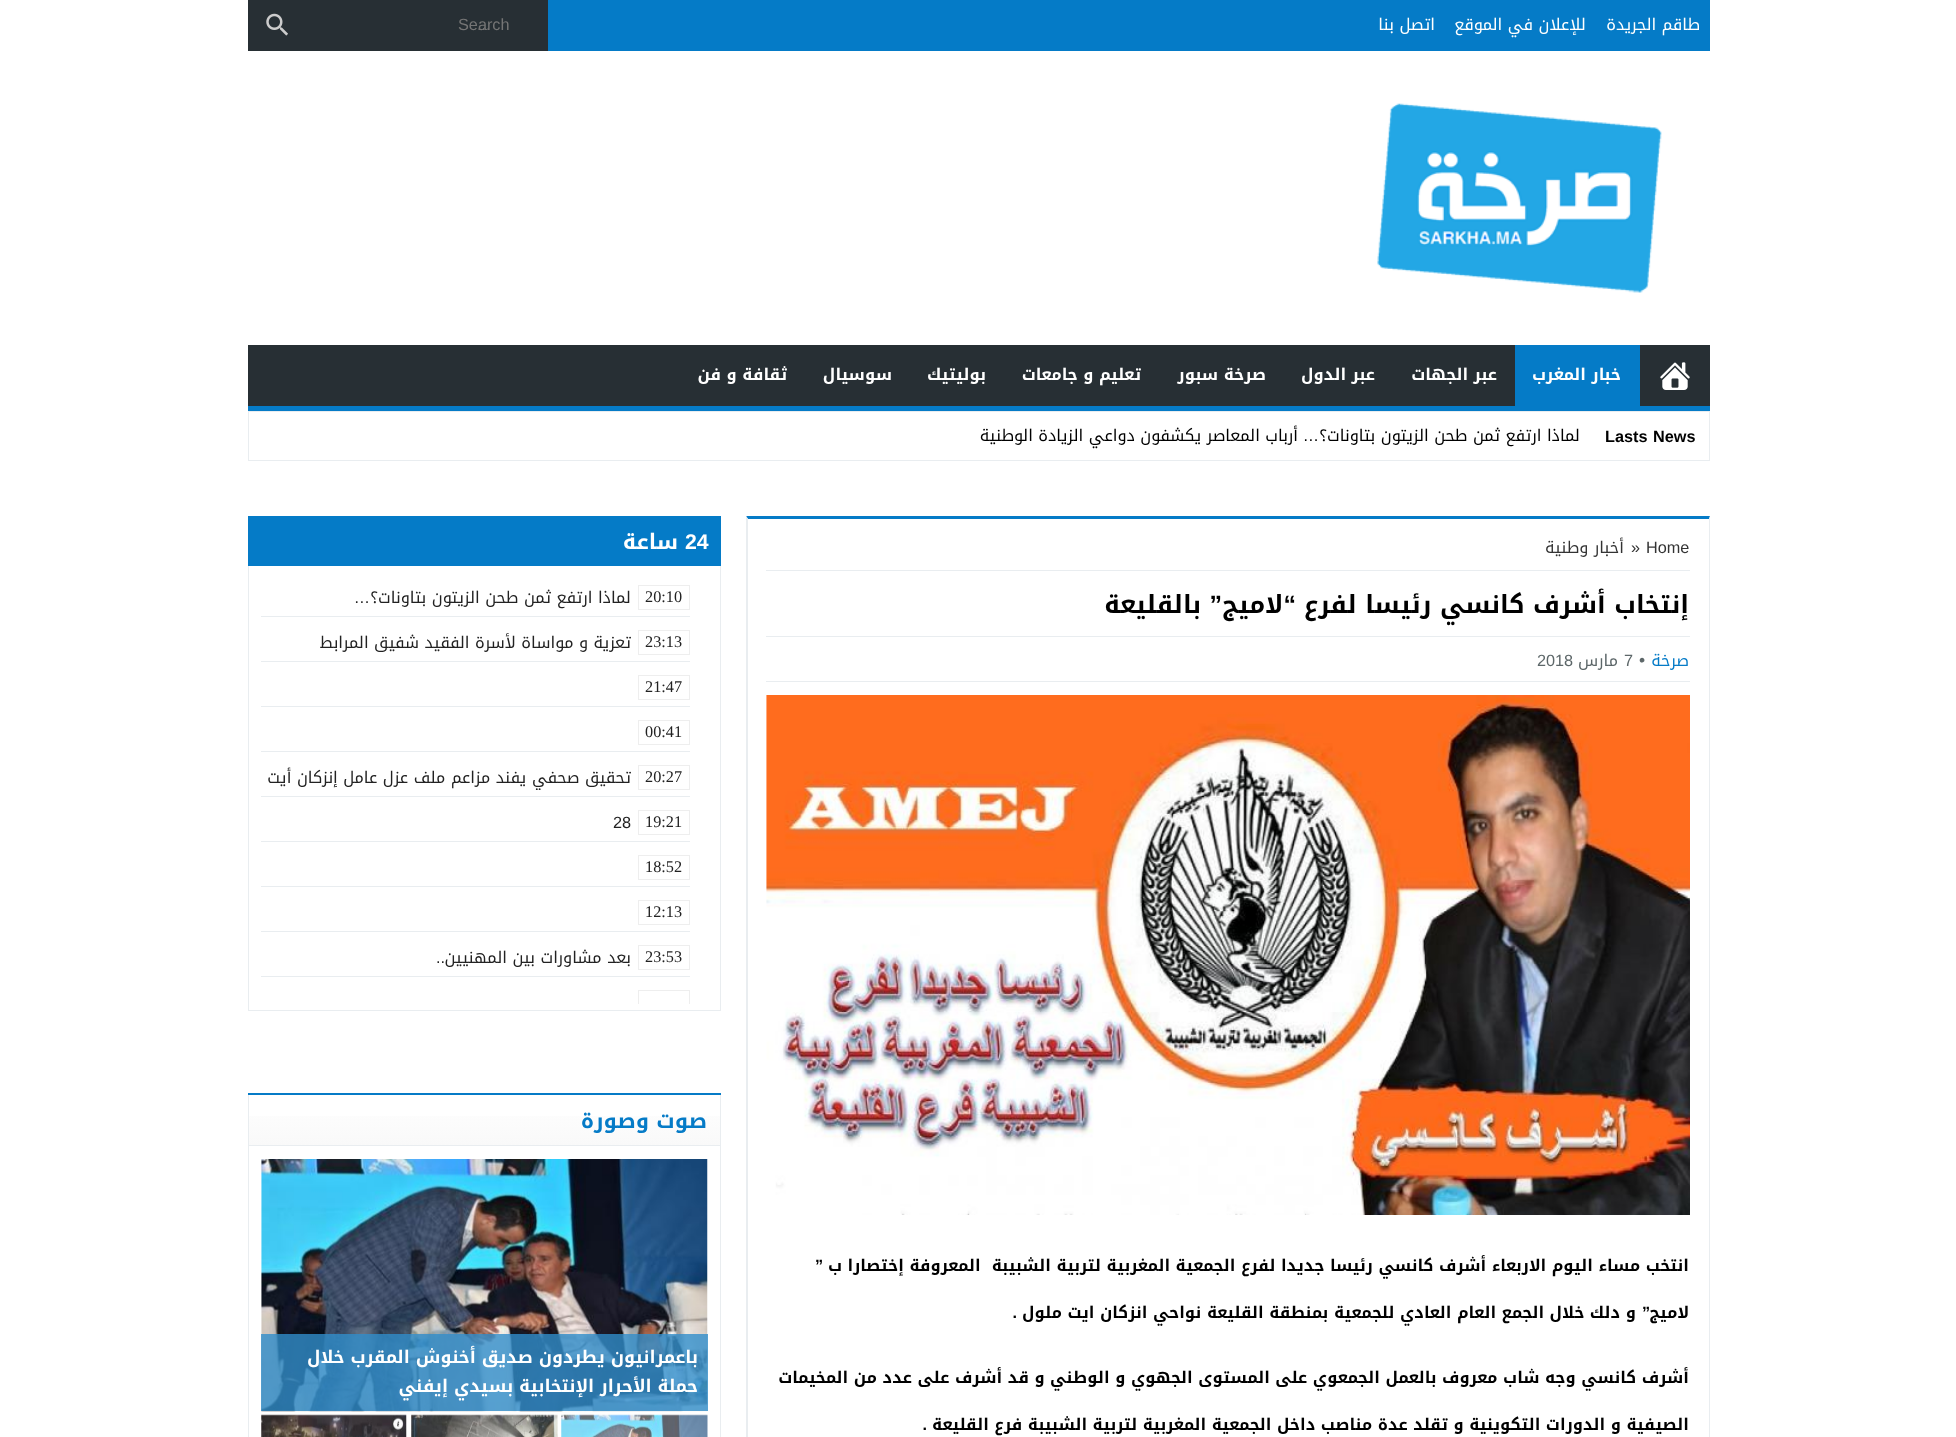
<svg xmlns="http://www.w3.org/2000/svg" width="1956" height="1437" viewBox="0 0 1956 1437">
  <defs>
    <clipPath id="clip1"><rect x="261" y="765" width="377" height="25"/></clipPath>
    <clipPath id="clip2"><rect x="261" y="579" width="447" height="425"/></clipPath>
    <linearGradient id="g1" gradientUnits="userSpaceOnUse" x1="484" y1="1095" x2="484" y2="1145"><stop offset="0" stop-color="#ffffff"/><stop offset="1" stop-color="#f9f9f9"/></linearGradient>
  </defs>
  <rect width="100%" height="100%" fill="#ffffff"/>
  <rect x="548" y="0" width="1162" height="51" fill="#057bc7"/>
  <text x="1700" y="30" font-family="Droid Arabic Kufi" font-size="16.25" direction="rtl" fill="#ffffff">طاقم الجريدة</text>
  <text x="1586" y="30" font-family="Droid Arabic Kufi" font-size="16.25" direction="rtl" fill="#ffffff">للإعلان في الموقع</text>
  <text x="1435" y="30" font-family="Droid Arabic Kufi" font-size="16.25" direction="rtl" fill="#ffffff">اتصل بنا</text>
  <rect x="248" y="0" width="300" height="51" fill="#272f34"/>
  <text x="458" y="30" font-family="Liberation Sans" font-size="16.25" fill="#757575">Search</text>
  <text x="477" y="30" font-family="Liberation Sans" font-size="16.25" fill="#757575">...</text>
  <image x="266" y="13" width="22" height="23" href="img1.png"/>
  <image x="1377" y="103" width="285" height="190" href="img2.png"/>
  <rect x="248" y="345" width="1462" height="61" fill="#272f34"/>
  <rect x="248" y="406" width="1462" height="5" fill="#057bc7"/>
  <image x="1660" y="362" width="30" height="28" href="img3.png"/>
  <rect x="1515" y="345" width="125" height="61" fill="#057bc7"/>
  <text x="1621" y="380" font-family="Droid Arabic Kufi" font-size="16.25" font-weight="bold" direction="rtl" fill="#ffffff">خبار المغرب</text>
  <text x="1497" y="380" font-family="Droid Arabic Kufi" font-size="16.25" font-weight="bold" direction="rtl" fill="#ffffff">عبر الجهات</text>
  <text x="1375" y="380" font-family="Droid Arabic Kufi" font-size="16.25" font-weight="bold" direction="rtl" fill="#ffffff">عبر الدول</text>
  <text x="1266" y="380" font-family="Droid Arabic Kufi" font-size="16.25" font-weight="bold" direction="rtl" fill="#ffffff">صرخة سبور</text>
  <text x="1141" y="380" font-family="Droid Arabic Kufi" font-size="16.25" font-weight="bold" direction="rtl" fill="#ffffff">تعليم و جامعات</text>
  <text x="986" y="380" font-family="Droid Arabic Kufi" font-size="16.25" font-weight="bold" direction="rtl" fill="#ffffff">بوليتيك</text>
  <text x="892" y="380" font-family="Droid Arabic Kufi" font-size="16.25" font-weight="bold" direction="rtl" fill="#ffffff">سوسيال</text>
  <text x="787" y="380" font-family="Droid Arabic Kufi" font-size="16.25" font-weight="bold" direction="rtl" fill="#ffffff">ثقافة و فن</text>
  <rect x="248.5" y="411.5" width="1461" height="49" fill="none" stroke="#e9edf0"/>
  <text x="1605" y="442" word-spacing="1" font-family="Liberation Sans" font-size="16.25" font-weight="bold" fill="#000000">Lasts News</text>
  <text x="1580" y="441" font-family="Droid Arabic Kufi" font-size="16.25" direction="rtl" fill="#000000">لماذا ارتفع ثمن طحن الزيتون بتاونات؟</text>
  <text x="1319" y="441" font-family="Liberation Sans" font-size="16.25" direction="rtl" fill="#000000">…</text>
  <text x="1298" y="441" font-family="Droid Arabic Kufi" font-size="16.25" direction="rtl" fill="#000000">أرباب المعاصر يكشفون دواعي الزيادة الوطنية</text>
  <path d="M746 516H1710L1709 519H748Z" fill="#057bc7"/>
  <path d="M1710 516V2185L1709 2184V519Z" fill="#e9edf0"/>
  <path d="M746 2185V516L748 519V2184Z" fill="#e9edf0"/>
  <rect x="766" y="570" width="924" height="1" fill="#e9edf0"/>
  <text x="1646" y="553" font-family="Liberation Sans" font-size="16.25" fill="#333333">Home</text>
  <text x="1631" y="553" font-family="Liberation Sans" font-size="16.25" fill="#333333">»</text>
  <text x="1624" y="553" font-family="Droid Arabic Kufi" font-size="16.25" direction="rtl" fill="#333333">أخبار وطنية</text>
  <text x="1689" y="613" font-family="Droid Arabic Kufi" font-size="25" font-weight="bold" direction="rtl" fill="#000000">إنتخاب أشرف كانسي رئيسا لفرع</text>
  <text x="1296" y="613" font-family="Liberation Sans" font-size="25" font-weight="bold" direction="rtl" fill="#000000">“</text>
  <text x="1283" y="613" font-family="Droid Arabic Kufi" font-size="25" font-weight="bold" direction="rtl" fill="#000000">لاميج</text>
  <text x="1222" y="613" font-family="Liberation Sans" font-size="25" font-weight="bold" direction="rtl" fill="#000000">”</text>
  <text x="1201" y="613" font-family="Droid Arabic Kufi" font-size="25" font-weight="bold" direction="rtl" fill="#000000">بالقليعة</text>
  <rect x="766" y="636" width="924" height="1" fill="#e9edf0"/>
  <rect x="766" y="681" width="924" height="1" fill="#e9edf0"/>
  <text x="1689" y="666" font-family="Droid Arabic Kufi" font-size="16.25" direction="rtl" fill="#057bc7">صرخة</text>
  <text x="1639" y="666" font-family="Liberation Sans" font-size="17.5" fill="#5d6769">•</text>
  <text x="1624" y="666" font-family="Liberation Sans" font-size="16.25" fill="#5d6769">7</text>
  <text x="1618" y="666" font-family="Droid Arabic Kufi" font-size="16.25" direction="rtl" fill="#5d6769">مارس</text>
  <text x="1537" y="666" font-family="Liberation Sans" font-size="16.25" fill="#5d6769">2018</text>
  <image x="766" y="695" width="924" height="520" href="img4.png"/>
  <text x="1689" y="1271" font-family="Droid Arabic Kufi" font-size="16.25" font-weight="bold" direction="rtl" fill="#000000" xml:space="preserve">انتخب مساء اليوم الاربعاء أشرف كانسي رئيسا جديدا لفرع الجمعية المغربية لتربية الشبيبة  المعروفة إختصارا ب</text>
  <text x="823" y="1271" font-family="Liberation Sans" font-size="16.25" font-weight="bold" direction="rtl" fill="#000000">”</text>
  <text x="1689" y="1318" font-family="Droid Arabic Kufi" font-size="16.25" font-weight="bold" direction="rtl" fill="#000000">لاميج</text>
  <text x="1650" y="1318" font-family="Liberation Sans" font-size="16.25" font-weight="bold" direction="rtl" fill="#000000">”</text>
  <text x="1636" y="1318" font-family="Droid Arabic Kufi" font-size="16.25" font-weight="bold" direction="rtl" fill="#000000">و دلك خلال الجمع العام العادي للجمعية بمنطقة القليعة نواحي انزكان ايت ملول</text>
  <text x="1017" y="1318" font-family="Liberation Sans" font-size="16.25" font-weight="bold" direction="rtl" fill="#000000">.</text>
  <text x="1689" y="1383" font-family="Droid Arabic Kufi" font-size="16.25" font-weight="bold" direction="rtl" fill="#000000">أشرف كانسي وجه شاب معروف بالعمل الجمعوي على المستوى الجهوي و الوطني و قد أشرف على عدد من المخيمات</text>
  <text x="1689" y="1430" font-family="Droid Arabic Kufi" font-size="16.25" font-weight="bold" direction="rtl" fill="#000000">الصيفية و الدورات التكوينية و تقلد عدة مناصب داخل الجمعية المغربية لتربية الشبيبة فرع القليعة</text>
  <text x="927" y="1430" font-family="Liberation Sans" font-size="16.25" font-weight="bold" direction="rtl" fill="#000000">.</text>
  <rect x="248" y="516" width="473" height="50" fill="#057bc7"/>
  <text x="685" y="549" font-family="Liberation Sans" font-size="21.25" font-weight="bold" fill="#ffffff">24</text>
  <text x="678" y="549" font-family="Droid Arabic Kufi" font-size="21.25" font-weight="bold" direction="rtl" fill="#ffffff">ساعة</text>
  <rect x="720" y="566" width="1" height="445" fill="#e9edf0"/>
  <rect x="248" y="1010" width="473" height="1" fill="#e9edf0"/>
  <rect x="248" y="566" width="1" height="445" fill="#e9edf0"/>
  <rect x="261" y="616" width="429" height="1" fill="#e9edf0"/>
  <rect x="638.5" y="585.5" width="51" height="24" fill="none" stroke="#eeeeee"/>
  <text x="645" y="602" font-family="Liberation Serif" font-size="16.25" fill="#222222">20:10</text>
  <text x="631" y="603" font-family="Droid Arabic Kufi" font-size="16.25" direction="rtl" fill="#222222">لماذا ارتفع ثمن طحن الزيتون بتاونات؟</text>
  <text x="370" y="603" font-family="Liberation Sans" font-size="16.25" direction="rtl" fill="#222222">…</text>
  <rect x="261" y="661" width="429" height="1" fill="#e9edf0"/>
  <rect x="638.5" y="630.5" width="51" height="24" fill="none" stroke="#eeeeee"/>
  <text x="645" y="647" font-family="Liberation Serif" font-size="16.25" fill="#222222">23:13</text>
  <text x="631" y="648" font-family="Droid Arabic Kufi" font-size="16.25" direction="rtl" fill="#222222">تعزية و مواساة لأسرة الفقيد شفيق المرابط</text>
  <rect x="261" y="706" width="429" height="1" fill="#e9edf0"/>
  <rect x="638.5" y="675.5" width="51" height="24" fill="none" stroke="#eeeeee"/>
  <text x="645" y="692" font-family="Liberation Serif" font-size="16.25" fill="#222222">21:47</text>
  <rect x="261" y="751" width="429" height="1" fill="#e9edf0"/>
  <rect x="638.5" y="720.5" width="51" height="24" fill="none" stroke="#eeeeee"/>
  <text x="645" y="737" font-family="Liberation Serif" font-size="16.25" fill="#222222">00:41</text>
  <rect x="261" y="796" width="429" height="1" fill="#e9edf0"/>
  <rect x="638.5" y="765.5" width="51" height="24" fill="none" stroke="#eeeeee"/>
  <text x="645" y="782" font-family="Liberation Serif" font-size="16.25" fill="#222222">20:27</text>
  <g clip-path="url(#clip1)">
    <text x="631" y="783" font-family="Droid Arabic Kufi" font-size="16.25" direction="rtl" fill="#222222">تحقيق صحفي يفند مزاعم ملف عزل عامل إنزكان أيت ملول</text>
  </g>
  <rect x="261" y="841" width="429" height="1" fill="#e9edf0"/>
  <rect x="638.5" y="810.5" width="51" height="24" fill="none" stroke="#eeeeee"/>
  <text x="645" y="827" font-family="Liberation Serif" font-size="16.25" fill="#222222">19:21</text>
  <text x="613" y="828" font-family="Liberation Sans" font-size="16.25" fill="#222222">28</text>
  <rect x="261" y="886" width="429" height="1" fill="#e9edf0"/>
  <rect x="638.5" y="855.5" width="51" height="24" fill="none" stroke="#eeeeee"/>
  <text x="645" y="872" font-family="Liberation Serif" font-size="16.25" fill="#222222">18:52</text>
  <rect x="261" y="931" width="429" height="1" fill="#e9edf0"/>
  <rect x="638.5" y="900.5" width="51" height="24" fill="none" stroke="#eeeeee"/>
  <text x="645" y="917" font-family="Liberation Serif" font-size="16.25" fill="#222222">12:13</text>
  <rect x="261" y="976" width="429" height="1" fill="#e9edf0"/>
  <rect x="638.5" y="945.5" width="51" height="24" fill="none" stroke="#eeeeee"/>
  <text x="645" y="962" font-family="Liberation Serif" font-size="16.25" fill="#222222">23:53</text>
  <text x="631" y="963" font-family="Droid Arabic Kufi" font-size="16.25" direction="rtl" fill="#222222">بعد مشاورات بين المهنيين</text>
  <text x="445" y="963" font-family="Liberation Sans" font-size="16.25" direction="rtl" fill="#222222">..</text>
  <g clip-path="url(#clip2)">
    <rect x="638.5" y="990.5" width="51" height="24" fill="none" stroke="#eeeeee"/>
  </g>
  <rect x="248" y="1093" width="473" height="2" fill="#057bc7"/>
  <rect x="249" y="1116" width="471" height="29" fill="url(#g1)"/>
  <rect x="720" y="1095" width="1" height="342" fill="#e9edf0"/>
  <rect x="248" y="1145" width="473" height="1" fill="#e9edf0"/>
  <rect x="248" y="1095" width="1" height="51" fill="#e9edf0"/>
  <text x="707" y="1128" font-family="Droid Arabic Kufi" font-size="21.25" font-weight="bold" direction="rtl" fill="#057bc7">صوت وصورة</text>
  <rect x="248" y="1146" width="1" height="291" fill="#e9edf0"/>
  <image x="261" y="1159" width="447" height="253" href="img5.png"/>
  <rect x="261" y="1334" width="447" height="77" fill="#318dcb" fill-opacity="0.8"/>
  <text x="698" y="1363" font-family="Droid Arabic Kufi" font-size="17.5" font-weight="bold" direction="rtl" fill="#ffffff">باعمرانيون يطردون صديق أخنوش المقرب خلال</text>
  <text x="698" y="1392" font-family="Droid Arabic Kufi" font-size="17.5" font-weight="bold" direction="rtl" fill="#ffffff">حملة الأحرار الإنتخابية بسيدي إيفني</text>
  <image x="561" y="1414" width="147" height="23" href="img6.png"/>
  <image x="411" y="1414" width="147" height="23" href="img7.png"/>
  <image x="261" y="1414" width="146" height="23" href="img8.png"/>
</svg>
